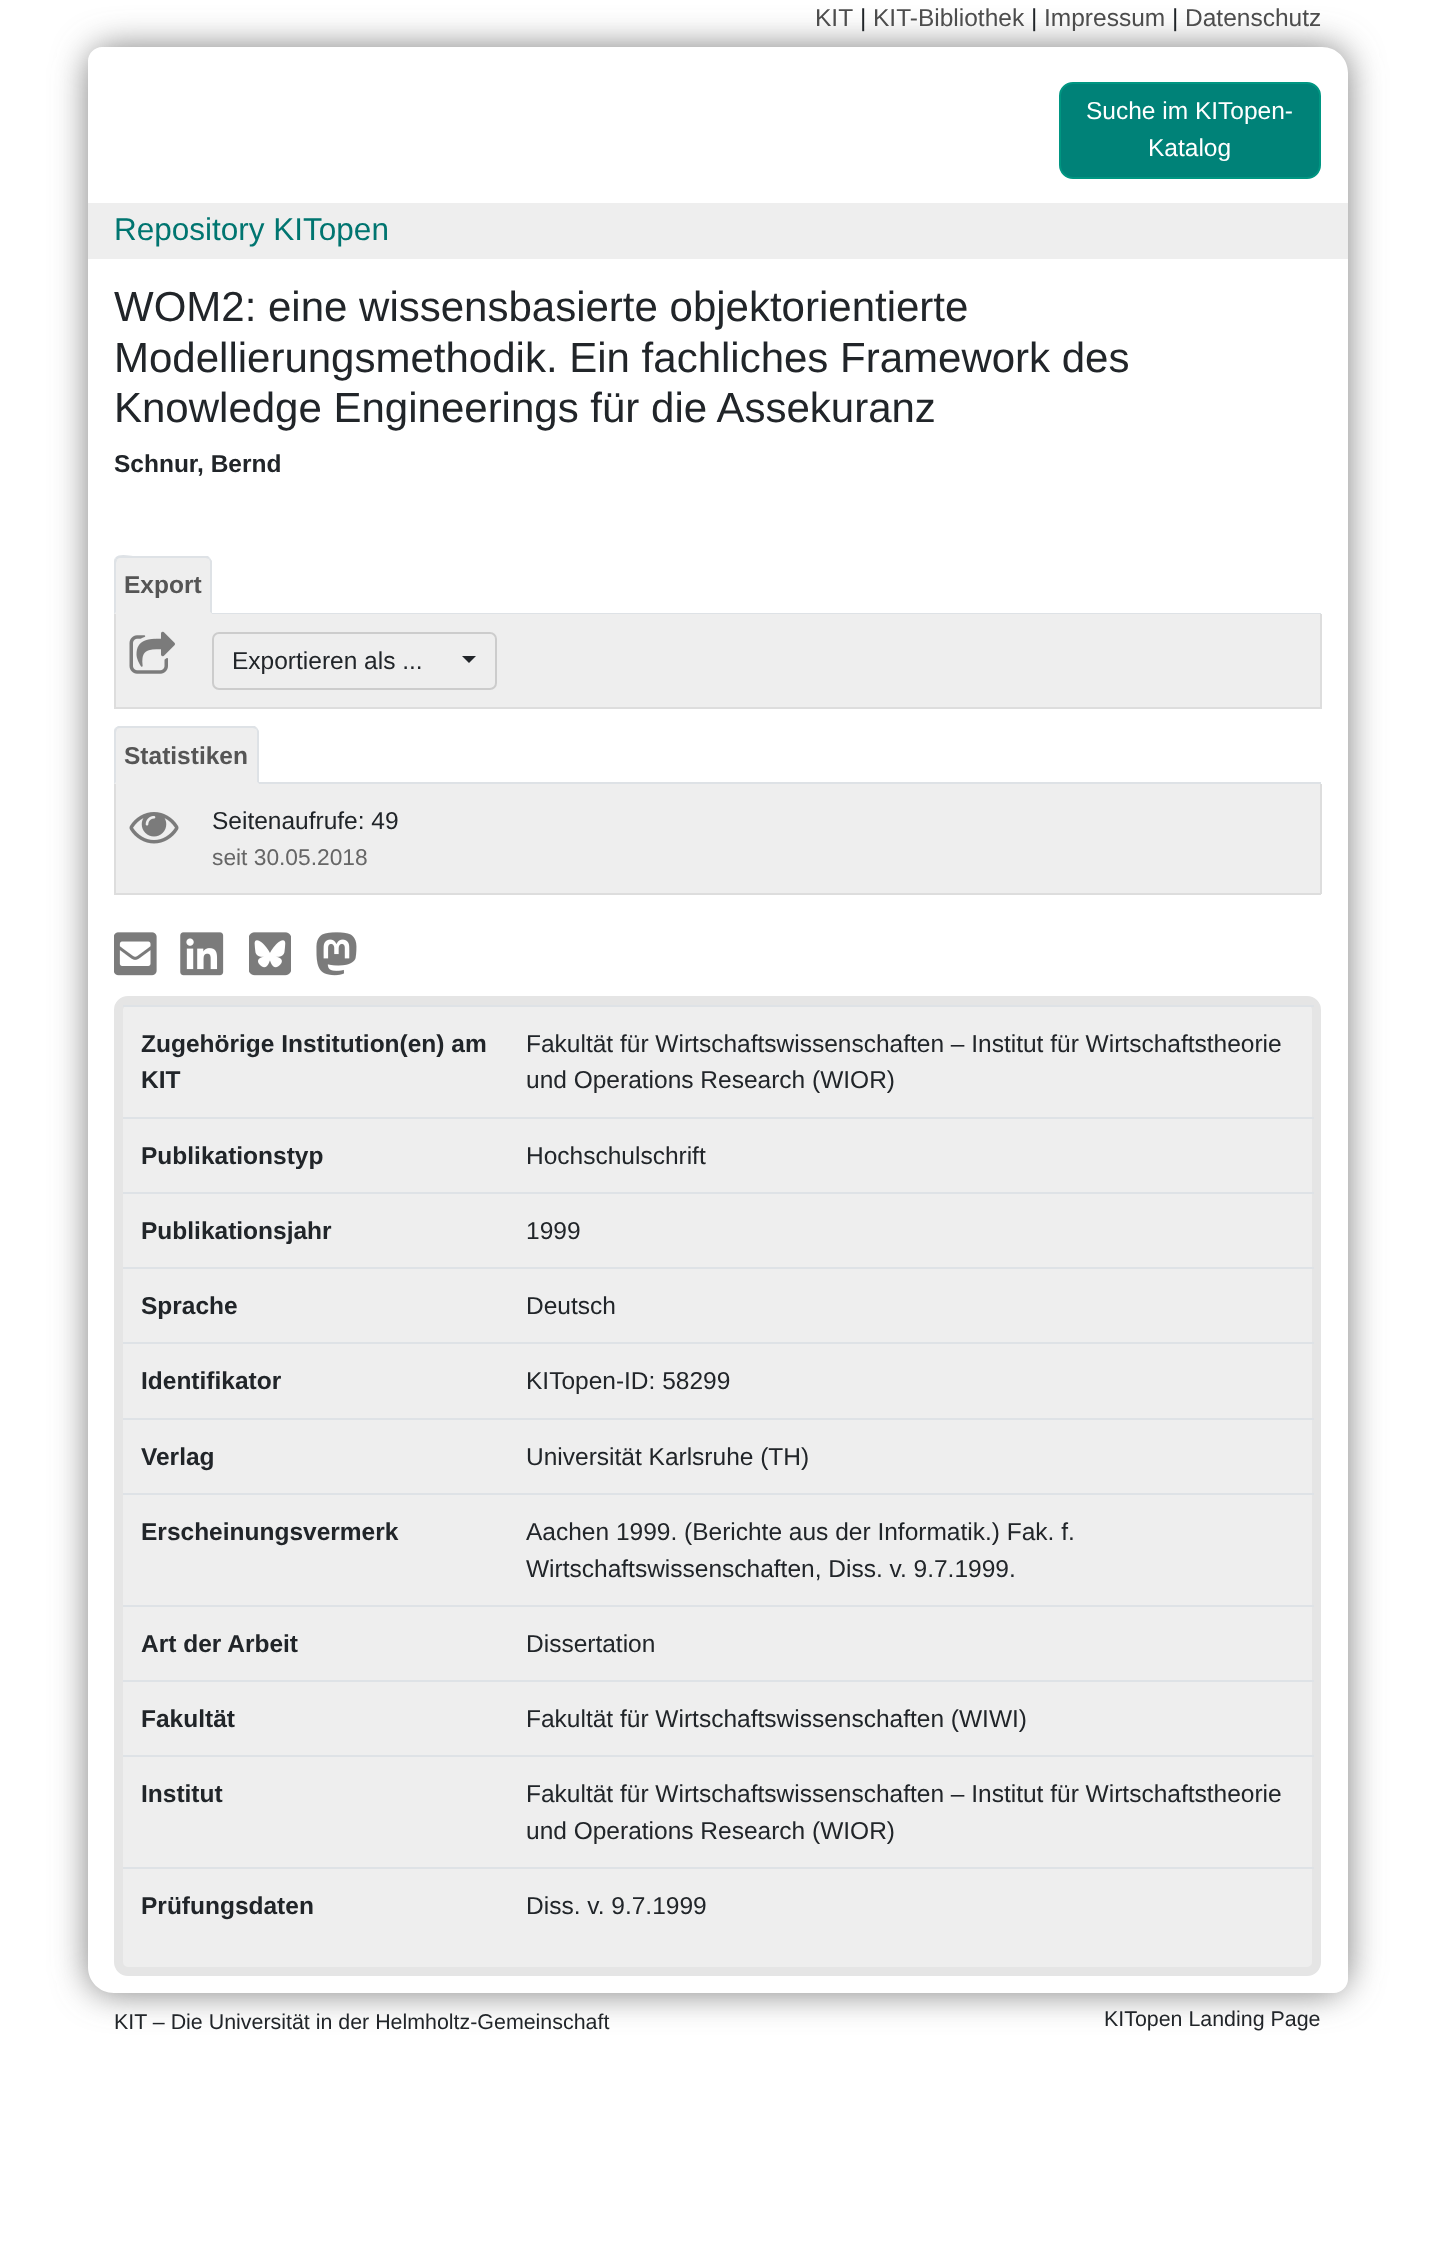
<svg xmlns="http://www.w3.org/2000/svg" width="1434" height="2263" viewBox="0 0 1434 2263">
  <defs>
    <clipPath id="clip1"><path d="M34 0H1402V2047H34ZM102 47H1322C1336.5 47 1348 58.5 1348 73V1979C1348 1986.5 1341.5 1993 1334 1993H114C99.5 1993 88 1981.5 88 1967V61C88 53.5 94.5 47 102 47Z" clip-rule="evenodd"/></clipPath>
    <filter id="blur1" x="-50%" y="-200%" width="200%" height="500%"><feGaussianBlur stdDeviation="17.5"/></filter>
  </defs>
  <rect width="100%" height="100%" fill="#ffffff"/>
  <g clip-path="url(#clip1)">
    <rect x="88" y="47" width="1260" height="1946" rx="26" fill="#808080" filter="url(#blur1)"/>
  </g>
  <text x="815" y="26" font-family="Liberation Sans" font-size="24.5" fill="#4d4d4d">KIT</text>
  <text x="860" y="26" font-family="Liberation Sans" font-size="24.5" fill="#212529">|</text>
  <text x="873" y="26" font-family="Liberation Sans" font-size="24.5" fill="#4d4d4d">KIT-Bibliothek</text>
  <text x="1031" y="26" font-family="Liberation Sans" font-size="24.5" fill="#212529">|</text>
  <text x="1044" y="26" font-family="Liberation Sans" font-size="24.5" fill="#4d4d4d">Impressum</text>
  <text x="1172" y="26" font-family="Liberation Sans" font-size="24.5" fill="#212529">|</text>
  <text x="1185" y="26" font-family="Liberation Sans" font-size="24.5" fill="#4d4d4d">Datenschutz</text>
  <rect x="1060" y="83" width="260" height="95" rx="13" fill="#008278" stroke="#009682" stroke-width="2"/>
  <text x="1086" y="119" font-family="Liberation Sans" font-size="24.5" fill="#ffffff">Suche im KITopen-</text>
  <text x="1148" y="156" font-family="Liberation Sans" font-size="24.5" fill="#ffffff">Katalog</text>
  <rect x="88" y="203" width="1260" height="56" fill="#eeeeee"/>
  <text x="114" y="240" font-family="Liberation Sans" font-size="31.5" fill="#007570">Repository KITopen</text>
  <text x="114" y="321" font-family="Liberation Sans" font-size="42" fill="#212529">WOM2: eine wissensbasierte objektorientierte</text>
  <text x="114" y="372" font-family="Liberation Sans" font-size="42" fill="#212529">Modellierungsmethodik. Ein fachliches Framework des</text>
  <text x="114" y="422" font-family="Liberation Sans" font-size="42" fill="#212529">Knowledge Engineerings für die Assekuranz</text>
  <text x="114" y="472" font-family="Liberation Sans" font-size="24.5" font-weight="bold" fill="#212529">Schnur, Bernd</text>
  <rect x="212" y="613" width="1109" height="1" fill="#dee2e6"/>
  <path d="M121 557H205C209 557 212 560 212 564V614H114V564C114 560 117 557 121 557Z" fill="#eeeeee"/>
  <path d="M120 558C118 558 117 559 117 560L115 558C119 553 130 556 133 556H208L210 558L209 559C208 559 207 558 206 558Z" fill="#dee2e6"/>
  <path d="M212 614L210 612V563C210 562 210 560 209 559L210 558L212 561Z" fill="#dee2e6"/>
  <path d="M212 614H114L116 612H210Z" fill="#eeeeee"/>
  <path d="M114 614L116 612V563L117 560L115 558C114 559 114 561 114 563Z" fill="#dee2e6"/>
  <text x="124" y="593" font-family="Liberation Sans" font-size="24.5" font-weight="bold" fill="#555555">Export</text>
  <rect x="116" y="614" width="1204" height="93" fill="#eeeeee"/>
  <rect x="1320" y="614" width="2" height="95" fill="#dddddd"/>
  <rect x="114" y="707" width="1207" height="2" fill="#dddddd"/>
  <rect x="114" y="614" width="2" height="95" fill="#dddddd"/>
  <image x="129" y="631" width="46" height="43" href="img1.png"/>
  <rect x="213" y="633" width="283" height="56" rx="6" fill="none" stroke="#cccccc" stroke-width="2"/>
  <text x="232" y="669" font-family="Liberation Sans" font-size="24.5" fill="#212529">Exportieren als ...</text>
  <path d="M462 656H476L469 663Z" fill="#212529"/>
  <rect x="259" y="782" width="1062" height="2" fill="#dee2e6"/>
  <path d="M121 726H252C256 726 259 729 259 733V784H114V733C114 729 117 726 121 726Z" fill="#eeeeee"/>
  <path d="M120 728C118 728 117 729 117 729L115 728L118 726H255L257 728L256 729L253 728Z" fill="#dee2e6"/>
  <path d="M259 784V732C259 731 258 729 257 728L256 729C257 730 257 731 257 732V782Z" fill="#dee2e6"/>
  <path d="M259 784L257 782H116L114 784Z" fill="#eeeeee"/>
  <path d="M114 784V732C114 731 114 729 115 728L117 729L116 732V782Z" fill="#dee2e6"/>
  <text x="124" y="764" font-family="Liberation Sans" font-size="24.5" font-weight="bold" fill="#555555">Statistiken</text>
  <rect x="116" y="784" width="1204" height="109" fill="#eeeeee"/>
  <rect x="1320" y="784" width="2" height="110" fill="#dddddd"/>
  <rect x="114" y="893" width="1207" height="2" fill="#dddddd"/>
  <rect x="114" y="784" width="2" height="110" fill="#dddddd"/>
  <image x="129" y="812" width="50" height="32" href="img2.png"/>
  <text x="212" y="829" font-family="Liberation Sans" font-size="24.5" fill="#212529">Seitenaufrufe: 49</text>
  <text x="212" y="865" font-family="Liberation Sans" font-size="22.75" fill="#666666">seit 30.05.2018</text>
  <image x="114" y="932" width="43" height="44" href="img3.png"/>
  <image x="180" y="932" width="44" height="44" href="img4.png"/>
  <image x="249" y="932" width="42" height="44" href="img5.png"/>
  <image x="316" y="932" width="41" height="44" href="img6.png"/>
  <rect x="118.5" y="1000.5" width="1198" height="971" rx="9.5" fill="#eeeeee" stroke="#e5e5e5" stroke-width="9"/>
  <text x="141" y="1052" font-family="Liberation Sans" font-size="24.5" font-weight="bold" fill="#212529">Zugehörige Institution(en) am</text>
  <text x="141" y="1088" font-family="Liberation Sans" font-size="24.5" font-weight="bold" fill="#212529">KIT</text>
  <rect x="123" y="1005" width="1191" height="2" fill="#dee2e6"/>
  <text x="526" y="1052" font-family="Liberation Sans" font-size="24.5" fill="#212529">Fakultät für Wirtschaftswissenschaften – Institut für Wirtschaftstheorie</text>
  <text x="526" y="1088" font-family="Liberation Sans" font-size="24.5" fill="#212529">und Operations Research (WIOR)</text>
  <text x="141" y="1164" font-family="Liberation Sans" font-size="24.5" font-weight="bold" fill="#212529">Publikationstyp</text>
  <rect x="123" y="1117" width="1191" height="2" fill="#dee2e6"/>
  <text x="526" y="1164" font-family="Liberation Sans" font-size="24.5" fill="#212529">Hochschulschrift</text>
  <text x="141" y="1239" font-family="Liberation Sans" font-size="24.5" font-weight="bold" fill="#212529">Publikationsjahr</text>
  <rect x="123" y="1192" width="1191" height="2" fill="#dee2e6"/>
  <text x="526" y="1239" font-family="Liberation Sans" font-size="24.5" fill="#212529">1999</text>
  <text x="141" y="1314" font-family="Liberation Sans" font-size="24.5" font-weight="bold" fill="#212529">Sprache</text>
  <rect x="123" y="1267" width="1191" height="2" fill="#dee2e6"/>
  <text x="526" y="1314" font-family="Liberation Sans" font-size="24.5" fill="#212529">Deutsch</text>
  <text x="141" y="1389" font-family="Liberation Sans" font-size="24.5" font-weight="bold" fill="#212529">Identifikator</text>
  <rect x="123" y="1342" width="1191" height="2" fill="#dee2e6"/>
  <text x="526" y="1389" font-family="Liberation Sans" font-size="24.5" fill="#212529">KITopen-ID: 58299</text>
  <text x="141" y="1465" font-family="Liberation Sans" font-size="24.5" font-weight="bold" fill="#212529">Verlag</text>
  <rect x="123" y="1418" width="1191" height="2" fill="#dee2e6"/>
  <text x="526" y="1465" font-family="Liberation Sans" font-size="24.5" fill="#212529">Universität Karlsruhe (TH)</text>
  <text x="141" y="1540" font-family="Liberation Sans" font-size="24.5" font-weight="bold" fill="#212529">Erscheinungsvermerk</text>
  <rect x="123" y="1493" width="1191" height="2" fill="#dee2e6"/>
  <text x="526" y="1540" font-family="Liberation Sans" font-size="24.5" fill="#212529">Aachen 1999. (Berichte aus der Informatik.) Fak. f.</text>
  <text x="526" y="1577" font-family="Liberation Sans" font-size="24.5" fill="#212529">Wirtschaftswissenschaften, Diss. v. 9.7.1999.</text>
  <text x="141" y="1652" font-family="Liberation Sans" font-size="24.5" font-weight="bold" fill="#212529">Art der Arbeit</text>
  <rect x="123" y="1605" width="1191" height="2" fill="#dee2e6"/>
  <text x="526" y="1652" font-family="Liberation Sans" font-size="24.5" fill="#212529">Dissertation</text>
  <text x="141" y="1727" font-family="Liberation Sans" font-size="24.5" font-weight="bold" fill="#212529">Fakultät</text>
  <rect x="123" y="1680" width="1191" height="2" fill="#dee2e6"/>
  <text x="526" y="1727" font-family="Liberation Sans" font-size="24.5" fill="#212529">Fakultät für Wirtschaftswissenschaften (WIWI)</text>
  <text x="141" y="1802" font-family="Liberation Sans" font-size="24.5" font-weight="bold" fill="#212529">Institut</text>
  <rect x="123" y="1755" width="1191" height="2" fill="#dee2e6"/>
  <text x="526" y="1802" font-family="Liberation Sans" font-size="24.5" fill="#212529">Fakultät für Wirtschaftswissenschaften – Institut für Wirtschaftstheorie</text>
  <text x="526" y="1839" font-family="Liberation Sans" font-size="24.5" fill="#212529">und Operations Research (WIOR)</text>
  <text x="141" y="1914" font-family="Liberation Sans" font-size="24.5" font-weight="bold" fill="#212529">Prüfungsdaten</text>
  <rect x="123" y="1867" width="1191" height="2" fill="#dee2e6"/>
  <text x="526" y="1914" font-family="Liberation Sans" font-size="24.5" fill="#212529">Diss. v. 9.7.1999</text>
  <text x="114" y="2029" font-family="Liberation Sans" font-size="21.4" fill="#212529">KIT – Die Universität in der Helmholtz-Gemeinschaft</text>
  <text x="1104" y="2026" font-family="Liberation Sans" font-size="21.4" fill="#212529">KITopen Landing Page</text>
</svg>
